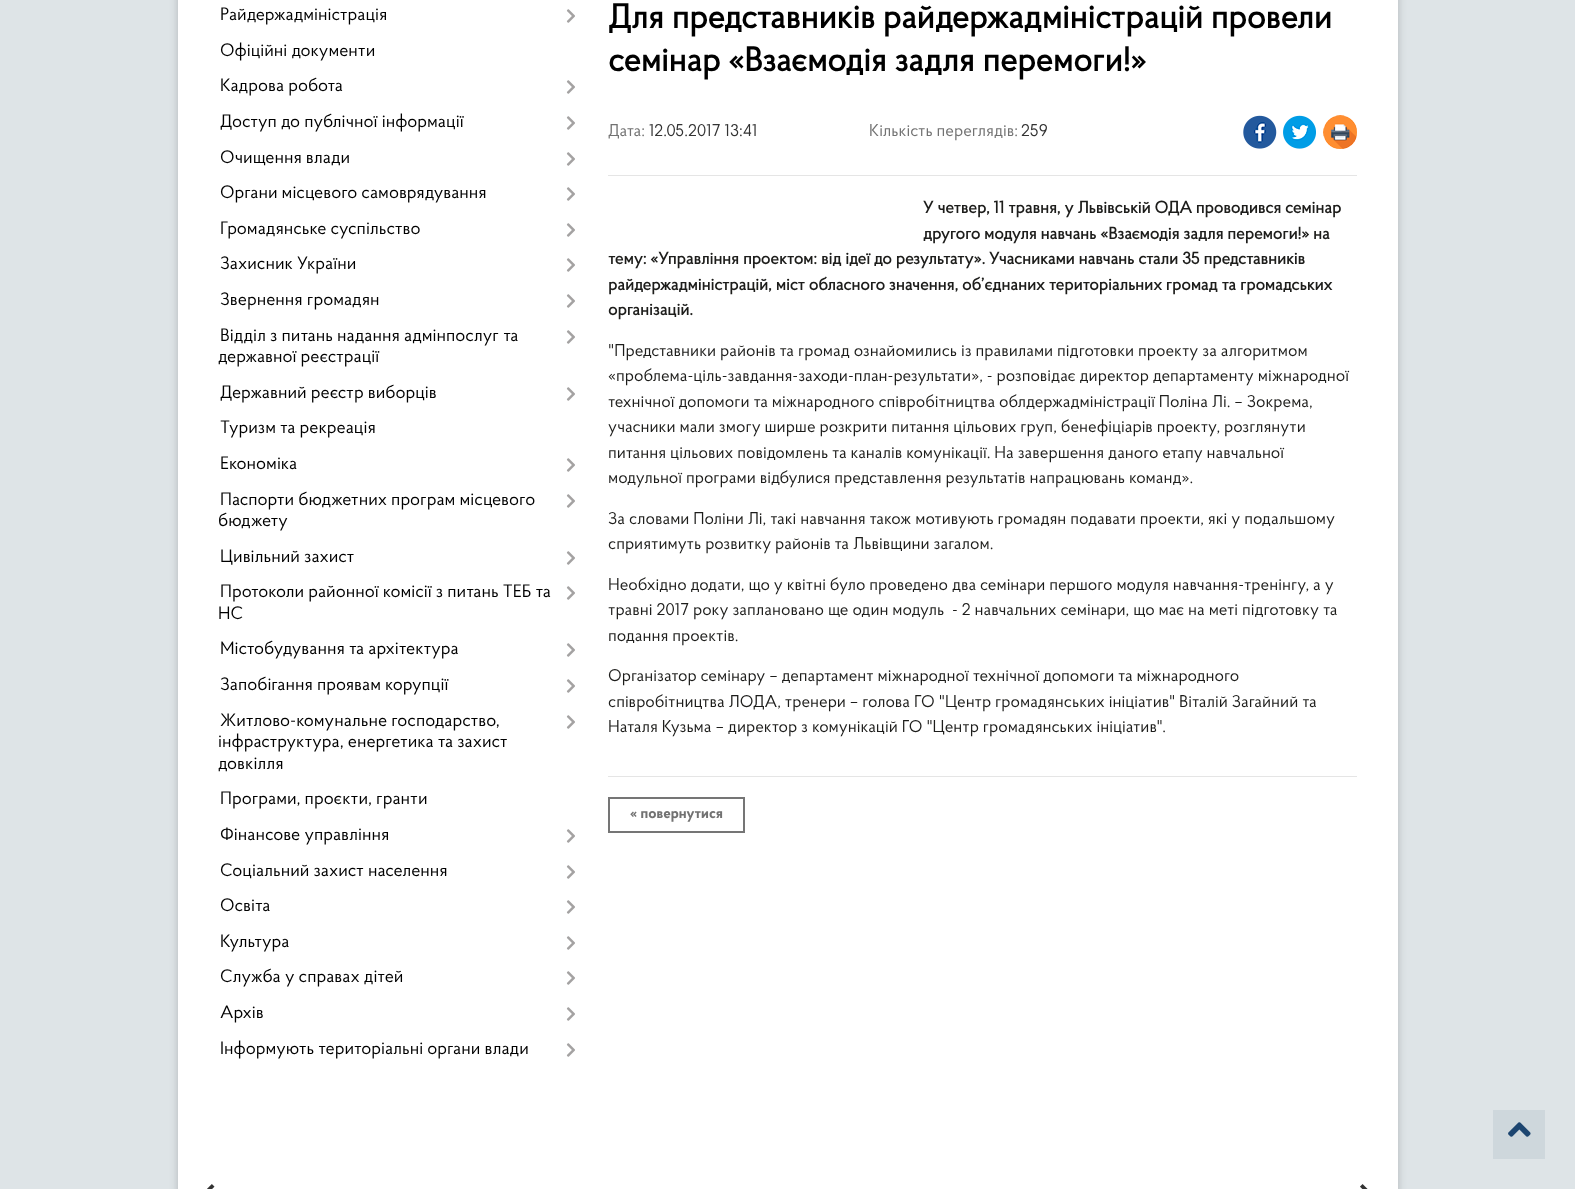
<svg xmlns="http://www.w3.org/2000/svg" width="1575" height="1189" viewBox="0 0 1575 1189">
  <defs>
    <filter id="blur1" x="-50%" y="-200%" width="200%" height="500%"><feGaussianBlur stdDeviation="4"/></filter>
  </defs>
  <rect width="100%" height="100%" fill="#dee4e7"/>
  <rect x="178" y="-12" width="1220" height="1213" fill="#000000" fill-opacity="0.2" filter="url(#blur1)"/>
  <rect x="178" y="0" width="1220" height="1189" fill="#ffffff"/>
  <text x="220" y="20" font-family="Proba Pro" font-size="18" fill="#000000">Райдержадміністрація</text>
  <image x="566" y="9" width="9" height="14" href="img1.png"/>
  <text x="220" y="56" font-family="Proba Pro" font-size="18" fill="#000000">Офіційні документи</text>
  <text x="220" y="91" font-family="Proba Pro" font-size="18" fill="#000000">Кадрова робота</text>
  <image x="566" y="80" width="9" height="14" href="img1.png"/>
  <text x="220" y="127" font-family="Proba Pro" font-size="18" fill="#000000">Доступ до публічної інформації</text>
  <image x="566" y="116" width="9" height="14" href="img1.png"/>
  <text x="220" y="163" font-family="Proba Pro" font-size="18" fill="#000000">Очищення влади</text>
  <image x="566" y="152" width="9" height="14" href="img1.png"/>
  <text x="220" y="198" font-family="Proba Pro" font-size="18" fill="#000000">Органи місцевого самоврядування</text>
  <image x="566" y="187" width="9" height="14" href="img1.png"/>
  <text x="220" y="234" font-family="Proba Pro" font-size="18" fill="#000000">Громадянське суспільство</text>
  <image x="566" y="223" width="9" height="14" href="img1.png"/>
  <text x="220" y="269" font-family="Proba Pro" font-size="18" fill="#000000">Захисник України</text>
  <image x="566" y="258" width="9" height="14" href="img1.png"/>
  <text x="220" y="305" font-family="Proba Pro" font-size="18" fill="#000000">Звернення громадян</text>
  <image x="566" y="294" width="9" height="14" href="img1.png"/>
  <text x="220" y="341" font-family="Proba Pro" font-size="18" fill="#000000">Відділ з питань надання адмінпослуг та</text>
  <text x="218" y="362" font-family="Proba Pro" font-size="18" fill="#000000">державної реєстрації</text>
  <image x="566" y="330" width="9" height="14" href="img1.png"/>
  <text x="220" y="398" font-family="Proba Pro" font-size="18" fill="#000000">Державний реєстр виборців</text>
  <image x="566" y="387" width="9" height="14" href="img1.png"/>
  <text x="220" y="433" font-family="Proba Pro" font-size="18" fill="#000000">Туризм та рекреація</text>
  <text x="220" y="469" font-family="Proba Pro" font-size="18" fill="#000000">Економіка</text>
  <image x="566" y="458" width="9" height="14" href="img1.png"/>
  <text x="220" y="505" font-family="Proba Pro" font-size="18" fill="#000000">Паспорти бюджетних програм місцевого</text>
  <text x="218" y="526" font-family="Proba Pro" font-size="18" fill="#000000">бюджету</text>
  <image x="566" y="494" width="9" height="14" href="img1.png"/>
  <text x="220" y="562" font-family="Proba Pro" font-size="18" fill="#000000">Цивільний захист</text>
  <image x="566" y="551" width="9" height="14" href="img1.png"/>
  <text x="220" y="597" font-family="Proba Pro" font-size="18" fill="#000000">Протоколи районної комісії з питань ТЕБ та</text>
  <text x="218" y="619" font-family="Proba Pro" font-size="18" fill="#000000">НС</text>
  <image x="566" y="586" width="9" height="14" href="img1.png"/>
  <text x="220" y="654" font-family="Proba Pro" font-size="18" fill="#000000">Містобудування та архітектура</text>
  <image x="566" y="643" width="9" height="14" href="img1.png"/>
  <text x="220" y="690" font-family="Proba Pro" font-size="18" fill="#000000">Запобігання проявам корупції</text>
  <image x="566" y="679" width="9" height="14" href="img1.png"/>
  <text x="220" y="726" font-family="Proba Pro" font-size="18" fill="#000000">Житлово-комунальне господарство,</text>
  <text x="218" y="747" font-family="Proba Pro" font-size="18" fill="#000000">інфраструктура, енергетика та захист</text>
  <text x="218" y="769" font-family="Proba Pro" font-size="18" fill="#000000">довкілля</text>
  <image x="566" y="715" width="9" height="14" href="img1.png"/>
  <text x="220" y="804" font-family="Proba Pro" font-size="18" fill="#000000">Програми, проєкти, гранти</text>
  <text x="220" y="840" font-family="Proba Pro" font-size="18" fill="#000000">Фінансове управління</text>
  <image x="566" y="829" width="9" height="14" href="img1.png"/>
  <text x="220" y="876" font-family="Proba Pro" font-size="18" fill="#000000">Соціальний захист населення</text>
  <image x="566" y="865" width="9" height="14" href="img1.png"/>
  <text x="220" y="911" font-family="Proba Pro" font-size="18" fill="#000000">Освіта</text>
  <image x="566" y="900" width="9" height="14" href="img1.png"/>
  <text x="220" y="947" font-family="Proba Pro" font-size="18" fill="#000000">Культура</text>
  <image x="566" y="936" width="9" height="14" href="img1.png"/>
  <text x="220" y="982" font-family="Proba Pro" font-size="18" fill="#000000">Служба у справах дітей</text>
  <image x="566" y="971" width="9" height="14" href="img1.png"/>
  <text x="220" y="1018" font-family="Proba Pro" font-size="18" fill="#000000">Архів</text>
  <image x="566" y="1007" width="9" height="14" href="img1.png"/>
  <text x="220" y="1054" font-family="Proba Pro" font-size="18" fill="#000000">Інформують територіальні органи влади</text>
  <image x="566" y="1043" width="9" height="14" href="img1.png"/>
  <text x="608" y="28" font-family="Proba Pro" font-size="34" font-weight="bold" fill="#000000">Для представників райдержадміністрацій провели</text>
  <text x="608" y="71" font-family="Proba Pro" font-size="34" font-weight="bold" fill="#000000">семінар «Взаємодія задля перемоги!»</text>
  <text x="608" y="136" font-family="Proba Pro" font-size="17" fill="#727272">Дата:</text>
  <text x="649" y="136" font-family="Proba Pro" font-size="17" fill="#333333">12.05.2017 13:41</text>
  <text x="869" y="136" font-family="Proba Pro" font-size="17" fill="#727272">Кількість переглядів:</text>
  <text x="1021" y="136" font-family="Proba Pro" font-size="17" fill="#333333">259</text>
  <image x="1243" y="115" width="34" height="34" href="img2.png"/>
  <image x="1283" y="115" width="33" height="34" href="img3.png"/>
  <image x="1323" y="115" width="34" height="34" href="img4.png"/>
  <rect x="608" y="175" width="749" height="1" fill="#e5e5e5"/>
  <text x="923" y="213" font-family="Proba Pro" font-size="17" font-weight="bold" fill="#1d1d1b">У четвер, 11 травня, у Львівській ОДА проводився семінар</text>
  <text x="923" y="239" font-family="Proba Pro" font-size="17" font-weight="bold" fill="#1d1d1b">другого модуля навчань «Взаємодія задля перемоги!» на</text>
  <text x="608" y="264" font-family="Proba Pro" font-size="17" font-weight="bold" fill="#1d1d1b">тему: «Управління проектом: від ідеї до результату». Учасниками навчань стали 35 представників</text>
  <text x="608" y="290" font-family="Proba Pro" font-size="17" font-weight="bold" fill="#1d1d1b">райдержадміністрацій, міст обласного значення, об’єднаних територіальних громад та громадських</text>
  <text x="608" y="315" font-family="Proba Pro" font-size="17" font-weight="bold" fill="#1d1d1b">організацій.</text>
  <text x="608" y="356" font-family="Proba Pro" font-size="17" fill="#1d1d1b">"Представники районів та громад ознайомились із правилами підготовки проекту за алгоритмом</text>
  <text x="608" y="381" font-family="Proba Pro" font-size="17" fill="#1d1d1b">«проблема-ціль-завдання-заходи-план-результати», - розповідає директор департаменту міжнародної</text>
  <text x="608" y="407" font-family="Proba Pro" font-size="17" fill="#1d1d1b">технічної допомоги та міжнародного співробітництва облдержадміністрації Поліна Лі. – Зокрема,</text>
  <text x="608" y="432" font-family="Proba Pro" font-size="17" fill="#1d1d1b">учасники мали змогу ширше розкрити питання цільових груп, бенефіціарів проекту, розглянути</text>
  <text x="608" y="458" font-family="Proba Pro" font-size="17" fill="#1d1d1b">питання цільових повідомлень та каналів комунікації. На завершення даного етапу навчальної</text>
  <text x="608" y="483" font-family="Proba Pro" font-size="17" fill="#1d1d1b">модульної програми відбулися представлення результатів напрацювань команд».</text>
  <text x="608" y="524" font-family="Proba Pro" font-size="17" fill="#1d1d1b">За словами Поліни Лі, такі навчання також мотивують громадян подавати проекти, які у подальшому</text>
  <text x="608" y="549" font-family="Proba Pro" font-size="17" fill="#1d1d1b">сприятимуть розвитку районів та Львівщини загалом.</text>
  <text x="608" y="590" font-family="Proba Pro" font-size="17" fill="#1d1d1b">Необхідно додати, що у квітні було проведено два семінари першого модуля навчання-тренінгу, а у</text>
  <text x="608" y="615" font-family="Proba Pro" font-size="17" fill="#1d1d1b" xml:space="preserve">травні 2017 року заплановано ще один модуль  - 2 навчальних семінари, що має на меті підготовку та</text>
  <text x="608" y="641" font-family="Proba Pro" font-size="17" fill="#1d1d1b">подання проектів.</text>
  <text x="608" y="681" font-family="Proba Pro" font-size="17" fill="#1d1d1b">Організатор семінару – департамент міжнародної технічної допомоги та міжнародного</text>
  <text x="608" y="707" font-family="Proba Pro" font-size="17" fill="#1d1d1b">співробітництва ЛОДА, тренери – голова ГО "Центр громадянських ініціатив" Віталій Загайний та</text>
  <text x="608" y="732" font-family="Proba Pro" font-size="17" fill="#1d1d1b">Наталя Кузьма – директор з комунікацій ГО "Центр громадянських ініціатив".</text>
  <rect x="608" y="776" width="749" height="1" fill="#e5e5e5"/>
  <rect x="609" y="798" width="135" height="34" fill="none" stroke="#757575" stroke-width="2"/>
  <text x="630" y="818" font-family="'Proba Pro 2'" font-size="15" font-weight="bold" fill="#727272">« повернутися</text>
  <image x="207" y="1184" width="8" height="5" href="img5.png"/>
  <image x="1360" y="1184" width="8" height="5" href="img6.png"/>
  <rect x="1493" y="1110" width="52" height="49" fill="#ced7dc"/>
  <image x="1508" y="1122" width="23" height="15" href="img7.png"/>
</svg>
